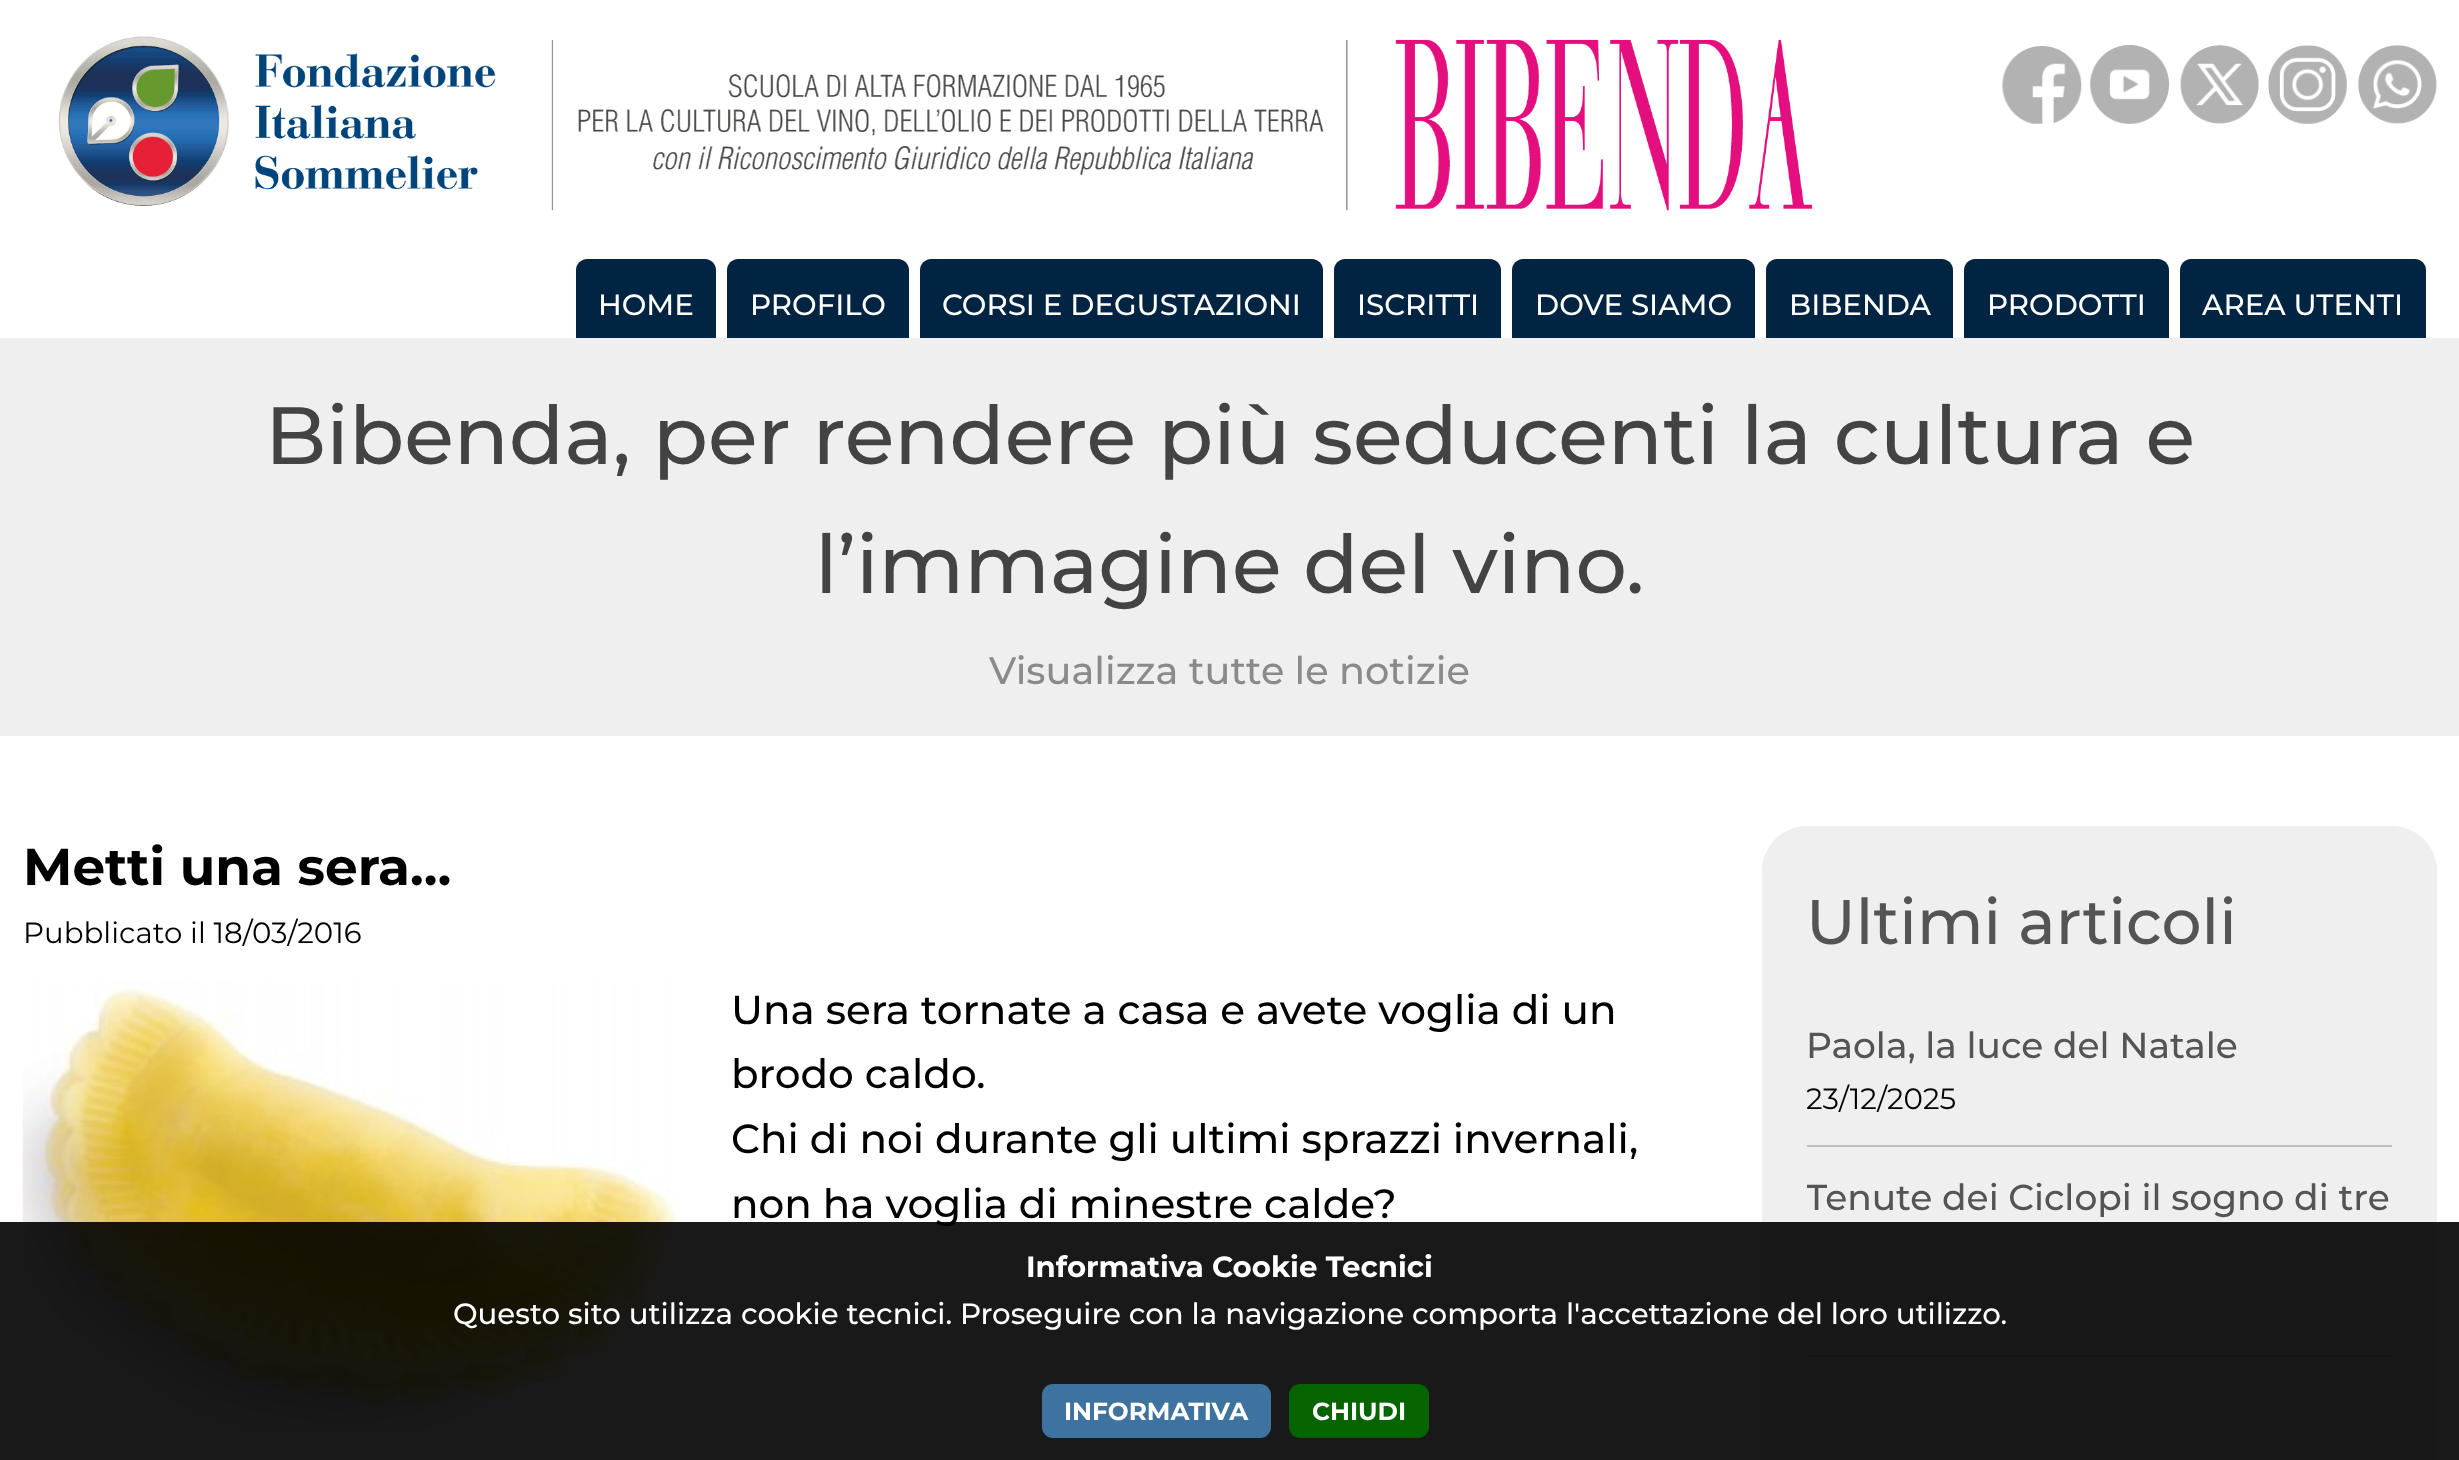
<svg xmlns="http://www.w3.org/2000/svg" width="2459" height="1460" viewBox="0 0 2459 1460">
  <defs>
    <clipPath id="clip1"><rect x="1807" y="871" width="585" height="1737"/></clipPath>
  </defs>
  <rect width="100%" height="100%" fill="#ffffff"/>
  <image x="58" y="36" width="1754" height="175" href="img1.png"/>
  <image x="2002" y="46" width="80" height="78" href="img2.png"/>
  <image x="2090" y="45" width="79" height="79" href="img3.png"/>
  <image x="2180" y="45" width="79" height="79" href="img4.png"/>
  <image x="2268" y="45" width="79" height="79" href="img5.png"/>
  <image x="2358" y="45" width="79" height="79" href="img6.png"/>
  <path d="M587 259H705C711 259 716 264 716 270V338H576V270C576 264 581 259 587 259Z" fill="#002442"/>
  <text x="598" y="315" font-family="Montserrat" font-size="29.25" font-weight="500" fill="#ffffff">HOME</text>
  <path d="M738 259H898C904 259 909 264 909 270V338H727V270C727 264 732 259 738 259Z" fill="#002442"/>
  <text x="750" y="315" font-family="Montserrat" font-size="29.25" font-weight="500" fill="#ffffff">PROFILO</text>
  <path d="M931 259H1312C1318 259 1323 264 1323 270V338H920V270C920 264 925 259 931 259Z" fill="#002442"/>
  <text x="942" y="315" font-family="Montserrat" font-size="29.25" font-weight="500" fill="#ffffff">CORSI E DEGUSTAZIONI</text>
  <path d="M1345 259H1490C1496 259 1501 264 1501 270V338H1334V270C1334 264 1339 259 1345 259Z" fill="#002442"/>
  <text x="1357" y="315" font-family="Montserrat" font-size="29.25" font-weight="500" fill="#ffffff">ISCRITTI</text>
  <path d="M1523 259H1744C1750 259 1755 264 1755 270V338H1512V270C1512 264 1517 259 1523 259Z" fill="#002442"/>
  <text x="1535" y="315" font-family="Montserrat" font-size="29.25" font-weight="500" fill="#ffffff">DOVE SIAMO</text>
  <path d="M1777 259H1942C1948 259 1953 264 1953 270V338H1766V270C1766 264 1771 259 1777 259Z" fill="#002442"/>
  <text x="1789" y="315" font-family="Montserrat" font-size="29.25" font-weight="500" fill="#ffffff">BIBENDA</text>
  <path d="M1975 259H2158C2164 259 2169 264 2169 270V338H1964V270C1964 264 1969 259 1975 259Z" fill="#002442"/>
  <text x="1987" y="315" font-family="Montserrat" font-size="29.25" font-weight="500" fill="#ffffff">PRODOTTI</text>
  <path d="M2191 259H2415C2421 259 2426 264 2426 270V338H2180V270C2180 264 2185 259 2191 259Z" fill="#002442"/>
  <text x="2202" y="315" font-family="Montserrat" font-size="29.25" font-weight="500" fill="#ffffff">AREA UTENTI</text>
  <rect x="0" y="338" width="2459" height="398" fill="#efefef"/>
  <text x="265" y="464" font-family="Montserrat" font-size="81" font-weight="500" fill="#434343">Bibenda, per rendere più seducenti la cultura e</text>
  <text x="815" y="593" font-family="Montserrat" font-size="81" font-weight="500" fill="#434343">l’immagine del vino.</text>
  <text x="989" y="684" font-family="Montserrat" font-size="38.25" font-weight="500" fill="#8a8a8a">Visualizza tutte le notizie</text>
  <text x="23" y="885" font-family="Montserrat" font-size="51.75" font-weight="bold" fill="#000000">Metti una sera…</text>
  <text x="23" y="943" font-family="Montserrat" font-size="29.25" fill="#000000">Pubblicato il 18/03/2016</text>
  <image x="22" y="979" width="657" height="454" href="img7.png"/>
  <text x="731" y="1024" font-family="Montserrat" font-size="40.5" font-weight="500" fill="#000000">Una sera tornate a casa e avete voglia di un</text>
  <text x="731" y="1088" font-family="Montserrat" font-size="40.5" font-weight="500" fill="#000000">brodo caldo.</text>
  <text x="731" y="1153" font-family="Montserrat" font-size="40.5" font-weight="500" fill="#000000">Chi di noi durante gli ultimi sprazzi invernali,</text>
  <text x="731" y="1218" font-family="Montserrat" font-size="40.5" font-weight="500" fill="#000000">non ha voglia di minestre calde?</text>
  <rect x="1762" y="826" width="675" height="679" rx="45" fill="#efefef"/>
  <text x="1806" y="944" font-family="Montserrat" font-size="63" font-weight="500" fill="#545454">Ultimi articoli</text>
  <rect x="1807" y="1145" width="585" height="2" fill="#bfbfbf"/>
  <text x="1806" y="1058" font-family="Montserrat" font-size="36" font-weight="500" fill="#545454">Paola, la luce del Natale</text>
  <g clip-path="url(#clip1)">
    <text x="1806" y="1109" font-family="Montserrat" font-size="29.25" fill="#000000">23/12/2025</text>
  </g>
  <rect x="1807" y="1355" width="585" height="2" fill="#bfbfbf"/>
  <g clip-path="url(#clip1)">
    <text x="1806" y="1210" font-family="Montserrat" font-size="36" font-weight="500" fill="#545454">Tenute dei Ciclopi il sogno di tre</text>
  </g>
  <rect x="0" y="1222" width="2459" height="238" fill="#000000" fill-opacity="0.9"/>
  <text x="1026" y="1277" font-family="Montserrat" font-size="29.25" font-weight="bold" fill="#ffffff">Informativa Cookie Tecnici</text>
  <text x="453" y="1324" font-family="Montserrat" font-size="29.25" font-weight="500" fill="#ffffff">Questo sito utilizza cookie tecnici. Proseguire con la navigazione comporta l'accettazione del loro utilizzo.</text>
  <rect x="1042" y="1384" width="229" height="54" rx="11" fill="#3e739f"/>
  <text x="1064" y="1420" font-family="Montserrat" font-size="24.75" font-weight="bold" fill="#ffffff">INFORMATIVA</text>
  <rect x="1289" y="1384" width="140" height="54" rx="11" fill="#056400"/>
  <text x="1312" y="1420" font-family="Montserrat" font-size="24.75" font-weight="bold" fill="#ffffff">CHIUDI</text>
</svg>
